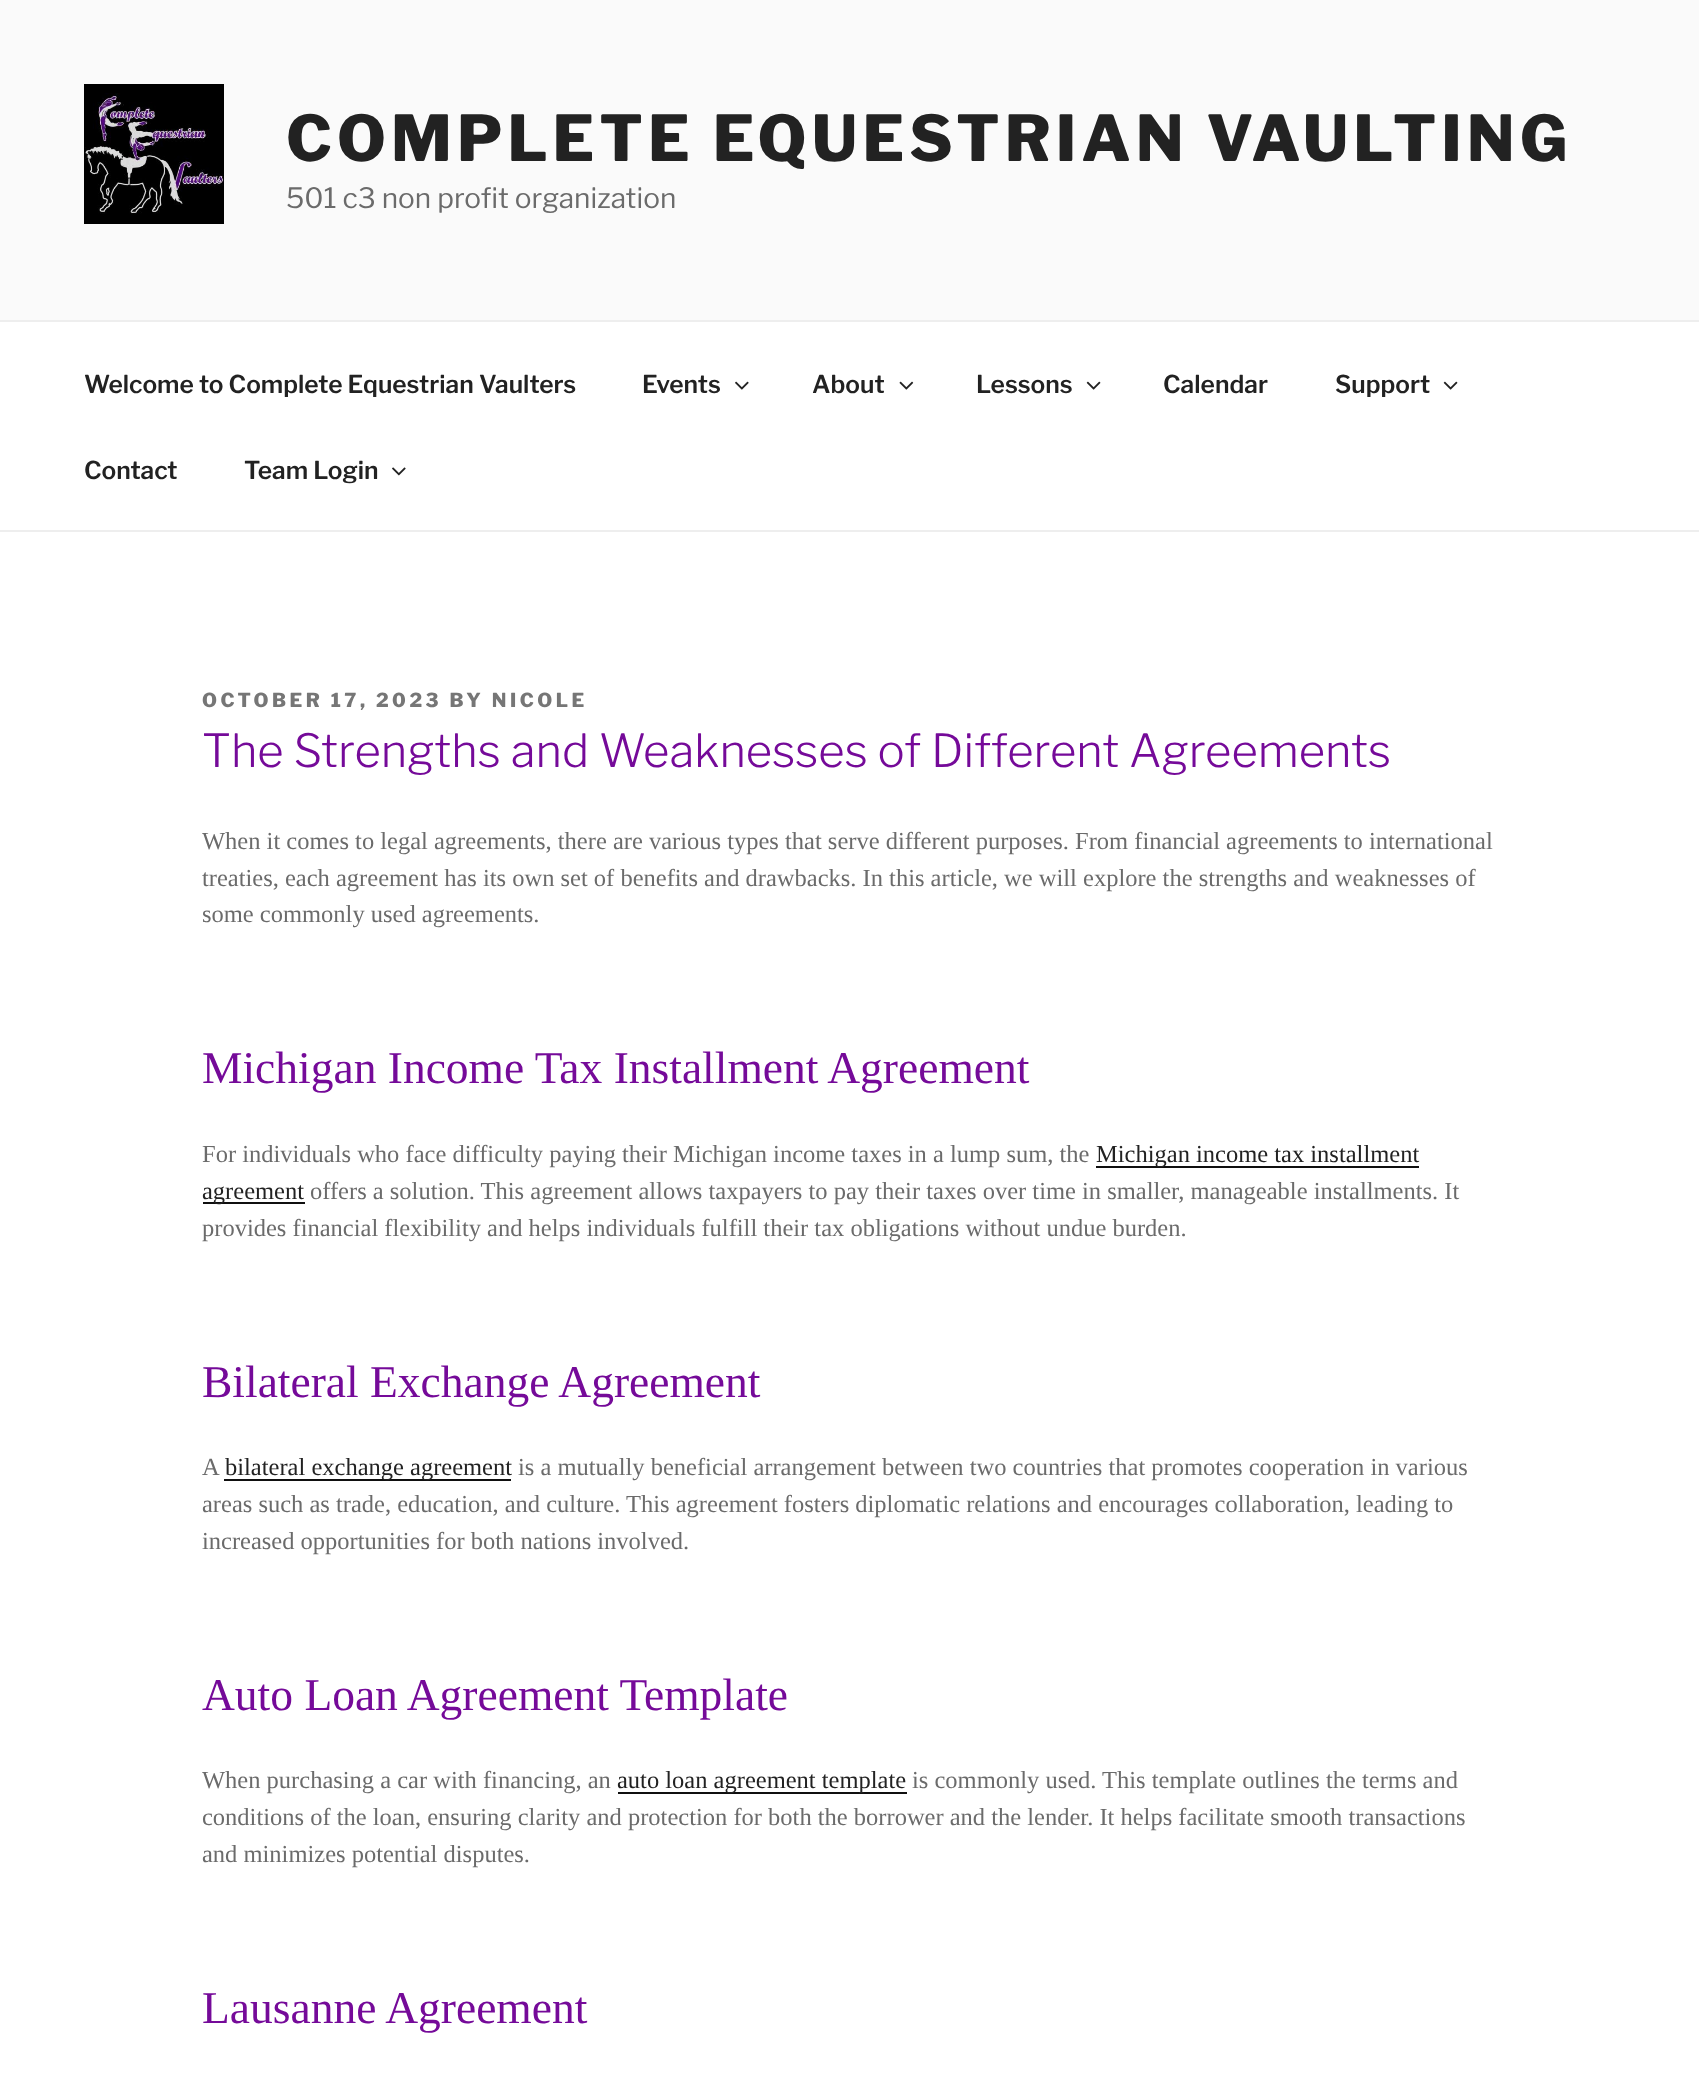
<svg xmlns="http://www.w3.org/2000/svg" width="1699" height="2080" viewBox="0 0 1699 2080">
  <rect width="100%" height="100%" fill="#ffffff"/>
  <rect x="0" y="0" width="1699" height="320" fill="#fafafa"/>
  <image x="84" y="84" width="140" height="140" href="img1.png"/>
  <text x="286" y="161" font-family="Libre Franklin" font-size="63" font-weight="100" letter-spacing="5.05" fill="#222222">COMPLETE EQUESTRIAN VAULTING</text>
  <text x="286" y="208" font-family="'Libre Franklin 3'" font-size="28" font-weight="100" fill="#6b6b6b">501 c3 non profit organization</text>
  <rect x="0" y="320" width="1699" height="2" fill="#eeeeee"/>
  <rect x="0" y="530" width="1699" height="2" fill="#eeeeee"/>
  <text x="84" y="393" font-family="'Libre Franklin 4'" font-size="24.5" font-weight="100" fill="#222222">Welcome to Complete Equestrian Vaulters</text>
  <text x="642" y="393" font-family="'Libre Franklin 4'" font-size="24.5" font-weight="100" fill="#222222">Events</text>
  <image x="735" y="381" width="14" height="9" href="img2.png"/>
  <text x="812" y="393" font-family="'Libre Franklin 4'" font-size="24.5" font-weight="100" fill="#222222">About</text>
  <image x="899" y="381" width="15" height="9" href="img3.png"/>
  <text x="976" y="393" font-family="'Libre Franklin 4'" font-size="24.5" font-weight="100" fill="#222222">Lessons</text>
  <image x="1086" y="381" width="15" height="9" href="img4.png"/>
  <text x="1163" y="393" font-family="'Libre Franklin 4'" font-size="24.5" font-weight="100" fill="#222222">Calendar</text>
  <text x="1335" y="393" font-family="'Libre Franklin 4'" font-size="24.5" font-weight="100" fill="#222222">Support</text>
  <image x="1443" y="381" width="15" height="9" href="img4.png"/>
  <text x="84" y="479" font-family="'Libre Franklin 4'" font-size="24.5" font-weight="100" fill="#222222">Contact</text>
  <text x="244" y="479" font-family="'Libre Franklin 4'" font-size="24.5" font-weight="100" fill="#222222">Team Login</text>
  <image x="392" y="467" width="14" height="9" href="img5.png"/>
  <text x="202" y="707" font-family="Libre Franklin" font-size="19.25" font-weight="100" letter-spacing="3.5" fill="#767676">OCTOBER 17, 2023 BY NICOLE</text>
  <text x="202" y="767" font-family="'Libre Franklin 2'" font-size="45.5" font-weight="100" fill="#750a99">The Strengths and Weaknesses of Different Agreements</text>
  <text x="202" y="849" font-family="Liberation Serif" font-size="24.5" fill="#6b6b6b">When it comes to legal agreements, there are various types that serve different purposes. From financial agreements to international</text>
  <text x="202" y="886" font-family="Liberation Serif" font-size="24.5" fill="#6b6b6b">treaties, each agreement has its own set of benefits and drawbacks. In this article, we will explore the strengths and weaknesses of</text>
  <text x="202" y="922" font-family="Liberation Serif" font-size="24.5" fill="#6b6b6b">some commonly used agreements.</text>
  <text x="202" y="1083" font-family="Liberation Serif" font-size="45.5" fill="#750a99">Michigan Income Tax Installment Agreement</text>
  <text x="202" y="1162" font-family="Liberation Serif" font-size="24.5" fill="#6b6b6b">For individuals who face difficulty paying their Michigan income taxes in a lump sum, the</text>
  <rect x="1096" y="1166" width="323" height="2" fill="#0f0f0f"/>
  <text x="1096" y="1162" font-family="Liberation Serif" font-size="24.5" fill="#222222">Michigan income tax installment</text>
  <rect x="203" y="1202" width="102" height="2" fill="#0f0f0f"/>
  <text x="202" y="1199" font-family="Liberation Serif" font-size="24.5" fill="#222222">agreement</text>
  <text x="310" y="1199" font-family="Liberation Serif" font-size="24.5" fill="#6b6b6b">offers a solution. This agreement allows taxpayers to pay their taxes over time in smaller, manageable installments. It</text>
  <text x="202" y="1236" font-family="Liberation Serif" font-size="24.5" fill="#6b6b6b">provides financial flexibility and helps individuals fulfill their tax obligations without undue burden.</text>
  <text x="202" y="1397" font-family="Liberation Serif" font-size="45.5" fill="#750a99">Bilateral Exchange Agreement</text>
  <text x="202" y="1475" font-family="Liberation Serif" font-size="24.5" fill="#6b6b6b">A</text>
  <rect x="224" y="1479" width="287" height="2" fill="#0f0f0f"/>
  <text x="225" y="1475" font-family="Liberation Serif" font-size="24.5" fill="#222222">bilateral exchange agreement</text>
  <text x="518" y="1475" font-family="Liberation Serif" font-size="24.5" fill="#6b6b6b">is a mutually beneficial arrangement between two countries that promotes cooperation in various</text>
  <text x="202" y="1512" font-family="Liberation Serif" font-size="24.5" fill="#6b6b6b">areas such as trade, education, and culture. This agreement fosters diplomatic relations and encourages collaboration, leading to</text>
  <text x="202" y="1549" font-family="Liberation Serif" font-size="24.5" fill="#6b6b6b">increased opportunities for both nations involved.</text>
  <text x="202" y="1710" font-family="Liberation Serif" font-size="45.5" fill="#750a99">Auto Loan Agreement Template</text>
  <text x="202" y="1788" font-family="Liberation Serif" font-size="24.5" fill="#6b6b6b">When purchasing a car with financing, an</text>
  <rect x="618" y="1792" width="289" height="2" fill="#0f0f0f"/>
  <text x="617" y="1788" font-family="Liberation Serif" font-size="24.5" fill="#222222">auto loan agreement template</text>
  <text x="912" y="1788" font-family="Liberation Serif" font-size="24.5" fill="#6b6b6b">is commonly used. This template outlines the terms and</text>
  <text x="202" y="1825" font-family="Liberation Serif" font-size="24.5" fill="#6b6b6b">conditions of the loan, ensuring clarity and protection for both the borrower and the lender. It helps facilitate smooth transactions</text>
  <text x="202" y="1862" font-family="Liberation Serif" font-size="24.5" fill="#6b6b6b">and minimizes potential disputes.</text>
  <text x="202" y="2023" font-family="Liberation Serif" font-size="45.5" fill="#750a99">Lausanne Agreement</text>
</svg>
